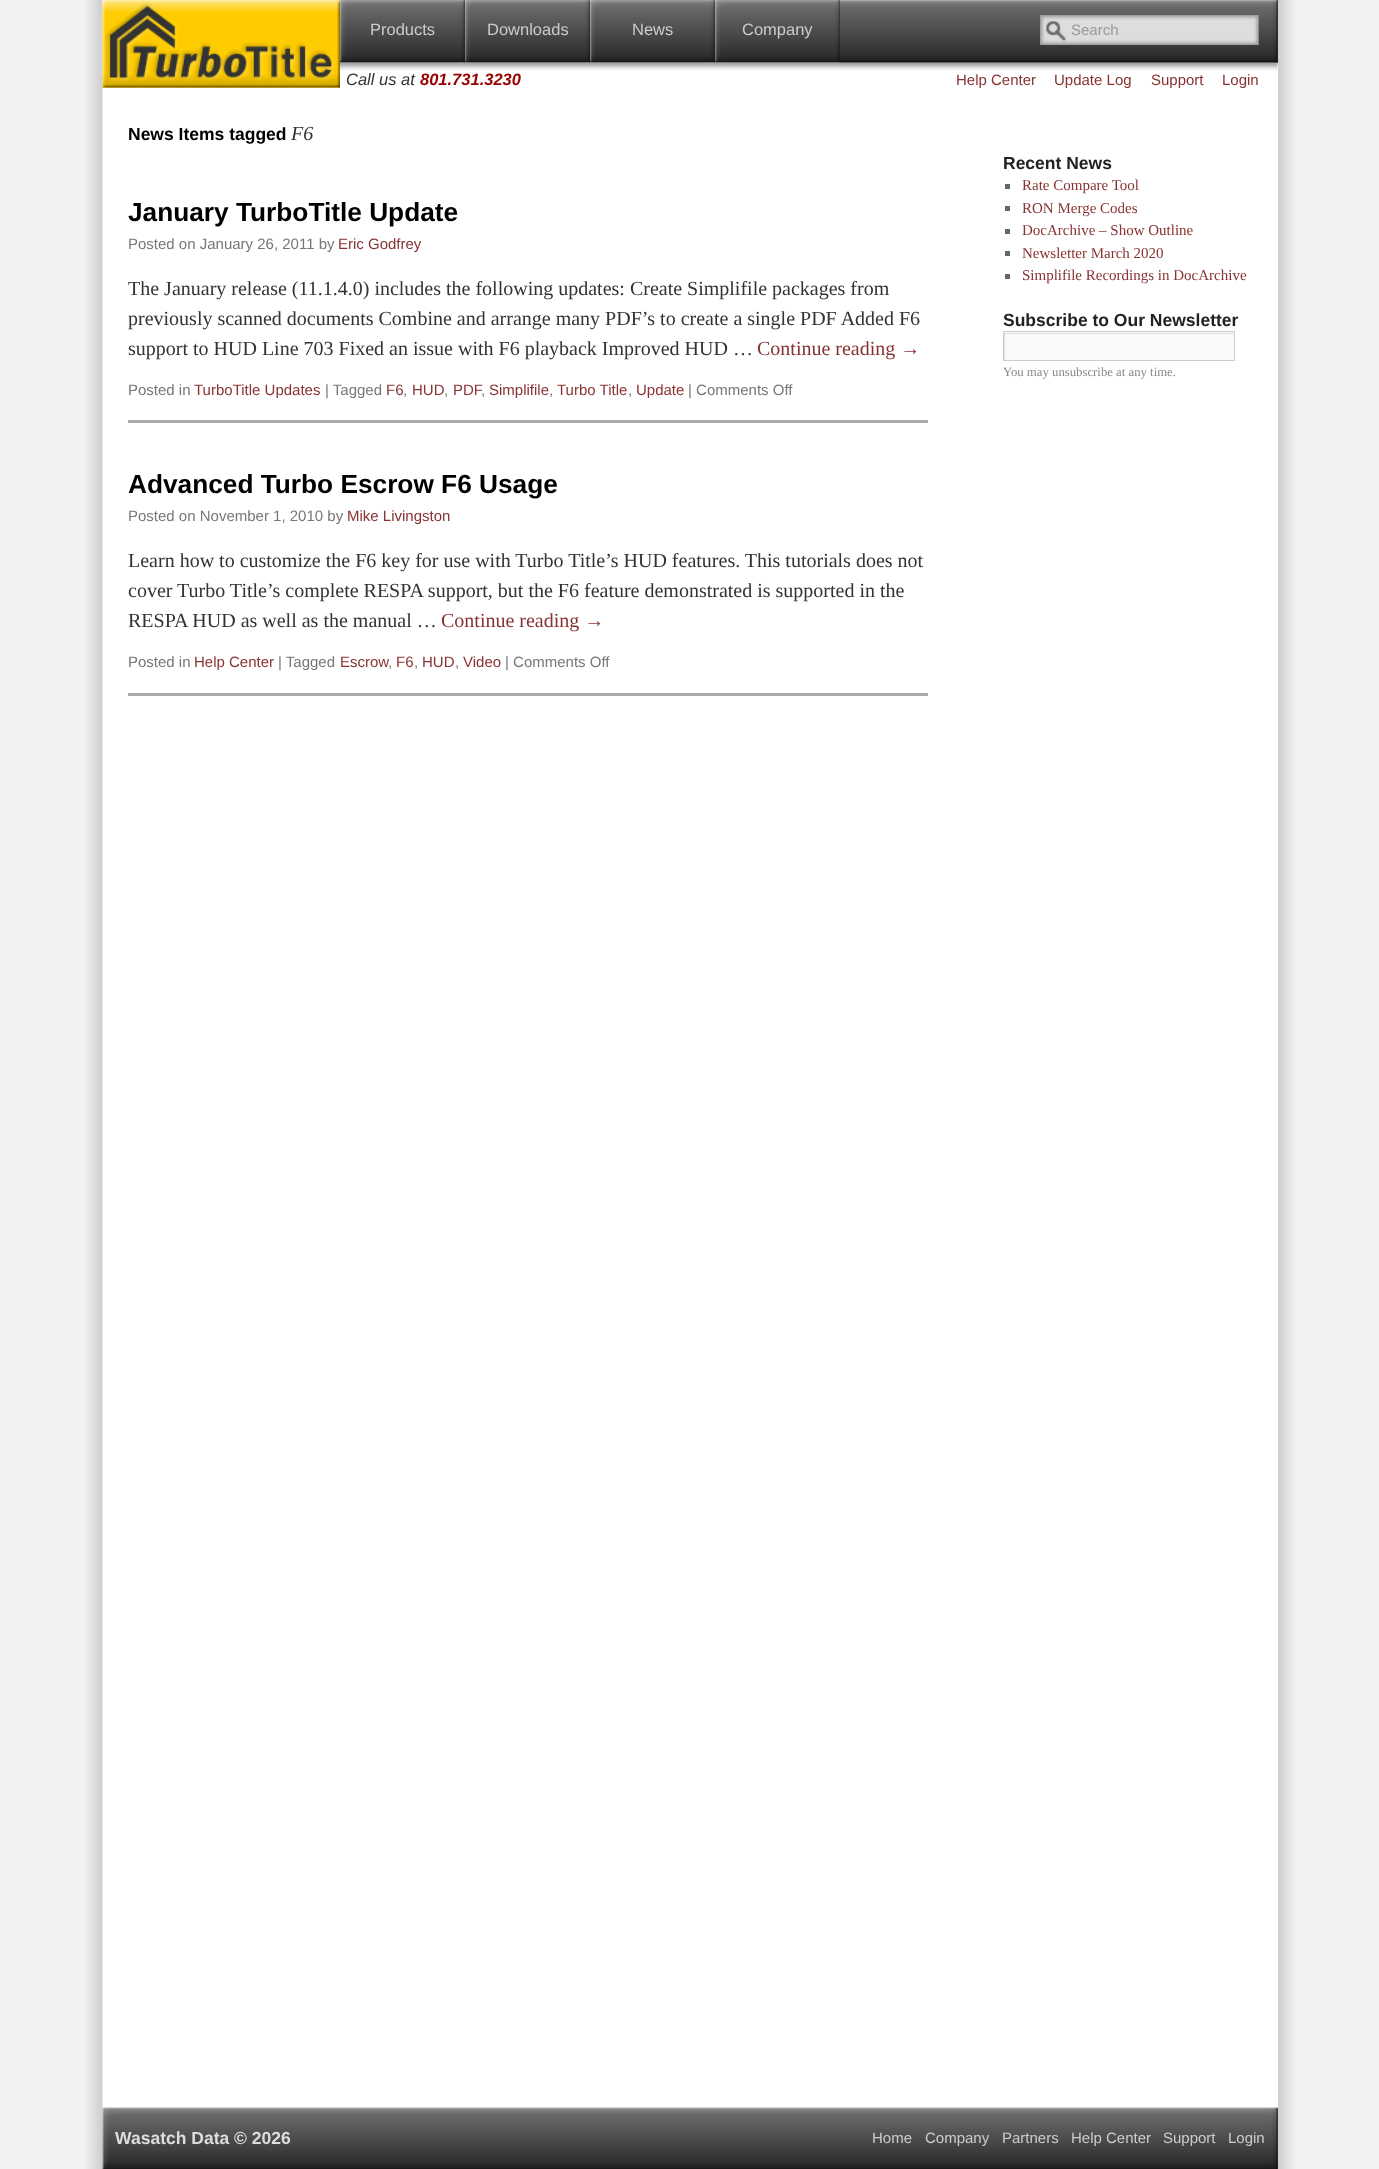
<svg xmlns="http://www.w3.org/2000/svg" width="1379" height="2169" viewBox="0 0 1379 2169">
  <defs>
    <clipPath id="clip1"><rect x="1004" y="333" width="230" height="27"/></clipPath>
  </defs>
  <rect width="100%" height="100%" fill="#f2f2f2"/>
  <image x="85" y="0" width="1210" height="2169" href="img1.png"/>
  <rect x="1277" y="63" width="1" height="2045" fill="#ffffff"/>
  <rect x="103" y="87" width="237" height="1" fill="#ffcc33"/>
  <image x="102" y="0" width="238" height="88" href="img2.png"/>
  <rect x="840" y="0" width="438" height="63" fill="#333333"/>
  <image x="840" y="0" width="438" height="63" href="img3.png"/>
  <image x="340" y="0" width="125" height="63" href="img4.png"/>
  <text x="370" y="35" font-family="Liberation Sans" font-size="16.5" fill="#cccccc">Products</text>
  <image x="465" y="0" width="125" height="63" href="img5.png"/>
  <text x="487" y="35" font-family="Liberation Sans" font-size="16.5" fill="#cccccc">Downloads</text>
  <image x="590" y="0" width="125" height="63" href="img6.png"/>
  <text x="632" y="35" font-family="Liberation Sans" font-size="16.5" fill="#cccccc">News</text>
  <image x="715" y="0" width="125" height="63" href="img7.png"/>
  <text x="742" y="35" font-family="Liberation Sans" font-size="16.5" fill="#cccccc">Company</text>
  <image x="1040" y="15" width="219" height="30" href="img8.png"/>
  <text x="1071" y="35" font-family="Liberation Sans" font-size="15" fill="#999999">Search</text>
  <image x="340" y="62" width="938" height="9" href="img9.png"/>
  <text x="346" y="85" font-family="Liberation Sans" font-size="16.5" font-style="italic" fill="#333333">Call us at</text>
  <text x="420" y="85" font-family="Liberation Sans" font-size="16.5" font-weight="bold" font-style="italic" fill="#990000">801.731.3230</text>
  <text x="956" y="85" font-family="Liberation Sans" font-size="15" fill="#883333">Help Center</text>
  <text x="1054" y="85" font-family="Liberation Sans" font-size="15" fill="#883333">Update Log</text>
  <text x="1151" y="85" font-family="Liberation Sans" font-size="15" fill="#883333">Support</text>
  <text x="1222" y="85" font-family="Liberation Sans" font-size="15" fill="#883333">Login</text>
  <text x="128" y="140" font-family="Liberation Sans" font-size="17.5" font-weight="bold" fill="#000000">News Items tagged</text>
  <text x="291" y="140" font-family="Liberation Serif" font-size="20" font-style="italic" fill="#333333">F6</text>
  <rect x="128" y="420" width="800" height="3" fill="#aaaaaa"/>
  <text x="128" y="221" font-family="Liberation Sans" font-size="26.25" font-weight="bold" fill="#000000">January TurboTitle Update</text>
  <text x="128" y="249" font-family="Liberation Sans" font-size="15" fill="#777777">Posted on January 26, 2011 by</text>
  <text x="338" y="249" font-family="Liberation Sans" font-size="15" fill="#883333">Eric Godfrey</text>
  <text x="128" y="295" font-family="Liberation Serif" font-size="20" fill="#333333">The January release (11.1.4.0) includes the following updates: Create Simplifile packages from</text>
  <text x="128" y="325" font-family="Liberation Serif" font-size="20" fill="#333333">previously scanned documents Combine and arrange many PDF’s to create a single PDF Added F6</text>
  <text x="128" y="355" font-family="Liberation Serif" font-size="20" fill="#333333">support to HUD Line 703 Fixed an issue with F6 playback Improved HUD …</text>
  <text x="757" y="355" font-family="Liberation Serif" font-size="20" fill="#883333">Continue reading →</text>
  <text x="128" y="395" font-family="Liberation Sans" font-size="15" fill="#777777">Posted in</text>
  <text x="194" y="395" font-family="Liberation Sans" font-size="15" fill="#883333">TurboTitle Updates</text>
  <text x="325" y="395" font-family="Liberation Sans" font-size="15" fill="#777777">| Tagged</text>
  <text x="386" y="395" font-family="Liberation Sans" font-size="15" fill="#883333">F6</text>
  <text x="403" y="395" font-family="Liberation Sans" font-size="15" fill="#777777">,</text>
  <text x="412" y="395" font-family="Liberation Sans" font-size="15" fill="#883333">HUD</text>
  <text x="444" y="395" font-family="Liberation Sans" font-size="15" fill="#777777">,</text>
  <text x="453" y="395" font-family="Liberation Sans" font-size="15" fill="#883333">PDF</text>
  <text x="481" y="395" font-family="Liberation Sans" font-size="15" fill="#777777">,</text>
  <text x="489" y="395" font-family="Liberation Sans" font-size="15" fill="#883333">Simplifile</text>
  <text x="549" y="395" font-family="Liberation Sans" font-size="15" fill="#777777">,</text>
  <text x="557" y="395" font-family="Liberation Sans" font-size="15" fill="#883333">Turbo Title</text>
  <text x="628" y="395" font-family="Liberation Sans" font-size="15" fill="#777777">,</text>
  <text x="636" y="395" font-family="Liberation Sans" font-size="15" fill="#883333">Update</text>
  <text x="688" y="395" font-family="Liberation Sans" font-size="15" fill="#777777">| Comments Off</text>
  <rect x="128" y="693" width="800" height="3" fill="#aaaaaa"/>
  <text x="128" y="493" font-family="Liberation Sans" font-size="26.25" font-weight="bold" fill="#000000">Advanced Turbo Escrow F6 Usage</text>
  <text x="128" y="521" font-family="Liberation Sans" font-size="15" fill="#777777">Posted on November 1, 2010 by</text>
  <text x="347" y="521" font-family="Liberation Sans" font-size="15" fill="#883333">Mike Livingston</text>
  <text x="128" y="567" font-family="Liberation Serif" font-size="20" fill="#333333">Learn how to customize the F6 key for use with Turbo Title’s HUD features. This tutorials does not</text>
  <text x="128" y="597" font-family="Liberation Serif" font-size="20" fill="#333333">cover Turbo Title’s complete RESPA support, but the F6 feature demonstrated is supported in the</text>
  <text x="128" y="627" font-family="Liberation Serif" font-size="20" fill="#333333">RESPA HUD as well as the manual …</text>
  <text x="441" y="627" font-family="Liberation Serif" font-size="20" fill="#883333">Continue reading →</text>
  <text x="128" y="667" font-family="Liberation Sans" font-size="15" fill="#777777">Posted in</text>
  <text x="194" y="667" font-family="Liberation Sans" font-size="15" fill="#883333">Help Center</text>
  <text x="278" y="667" font-family="Liberation Sans" font-size="15" fill="#777777">| Tagged</text>
  <text x="340" y="667" font-family="Liberation Sans" font-size="15" fill="#883333">Escrow</text>
  <text x="388" y="667" font-family="Liberation Sans" font-size="15" fill="#777777">,</text>
  <text x="396" y="667" font-family="Liberation Sans" font-size="15" fill="#883333">F6</text>
  <text x="414" y="667" font-family="Liberation Sans" font-size="15" fill="#777777">,</text>
  <text x="422" y="667" font-family="Liberation Sans" font-size="15" fill="#883333">HUD</text>
  <text x="455" y="667" font-family="Liberation Sans" font-size="15" fill="#777777">,</text>
  <text x="463" y="667" font-family="Liberation Sans" font-size="15" fill="#883333">Video</text>
  <text x="505" y="667" font-family="Liberation Sans" font-size="15" fill="#777777">| Comments Off</text>
  <text x="1003" y="169" font-family="Liberation Sans" font-size="17.5" font-weight="bold" fill="#222222">Recent News</text>
  <rect x="1005" y="184" width="5" height="5" fill="#666666"/>
  <text x="1022" y="190" font-family="Liberation Serif" font-size="15" fill="#883333">Rate Compare Tool</text>
  <rect x="1005" y="206" width="5" height="5" fill="#666666"/>
  <text x="1022" y="213" font-family="Liberation Serif" font-size="15" fill="#883333">RON Merge Codes</text>
  <rect x="1005" y="229" width="5" height="5" fill="#666666"/>
  <text x="1022" y="235" font-family="Liberation Serif" font-size="15" fill="#883333">DocArchive – Show Outline</text>
  <rect x="1005" y="251" width="5" height="5" fill="#666666"/>
  <text x="1022" y="258" font-family="Liberation Serif" font-size="15" fill="#883333">Newsletter March 2020</text>
  <rect x="1005" y="274" width="5" height="5" fill="#666666"/>
  <text x="1022" y="280" font-family="Liberation Serif" font-size="15" fill="#883333">Simplifile Recordings in DocArchive</text>
  <text x="1003" y="326" font-family="Liberation Sans" font-size="17.5" font-weight="bold" fill="#222222">Subscribe to Our Newsletter</text>
  <rect x="1004" y="332" width="230" height="28" fill="#f9f9f9"/>
  <g clip-path="url(#clip1)">
    <path d="M880 209H1358V484H880ZM1005 334H1235V361H1005Z" fill="#e0e0e0" fill-rule="evenodd"/>
  </g>
  <rect x="1003.5" y="331.5" width="231" height="29" fill="none" stroke="#cccccc"/>
  <text x="1003" y="376" font-family="Liberation Serif" font-size="12.75" fill="#888888">You may unsubscribe at any time.</text>
  <rect x="1277" y="2108" width="1" height="61" fill="#333333"/>
  <image x="102" y="2107" width="1176" height="62" href="img10.png"/>
  <text x="115" y="2144" font-family="Liberation Sans" font-size="17.5" font-weight="bold" fill="#dddddd">W</text>
  <text x="131" y="2144" font-family="Liberation Sans" font-size="17.5" font-weight="bold" fill="#dddddd">asatch Data © 2026</text>
  <text x="872" y="2143" font-family="Liberation Sans" font-size="15" fill="#cccccc">Home</text>
  <text x="925" y="2143" font-family="Liberation Sans" font-size="15" fill="#cccccc">Company</text>
  <text x="1002" y="2143" font-family="Liberation Sans" font-size="15" fill="#cccccc">Partners</text>
  <text x="1071" y="2143" font-family="Liberation Sans" font-size="15" fill="#cccccc">Help Center</text>
  <text x="1163" y="2143" font-family="Liberation Sans" font-size="15" fill="#cccccc">Support</text>
  <text x="1228" y="2143" font-family="Liberation Sans" font-size="15" fill="#cccccc">Login</text>
</svg>
